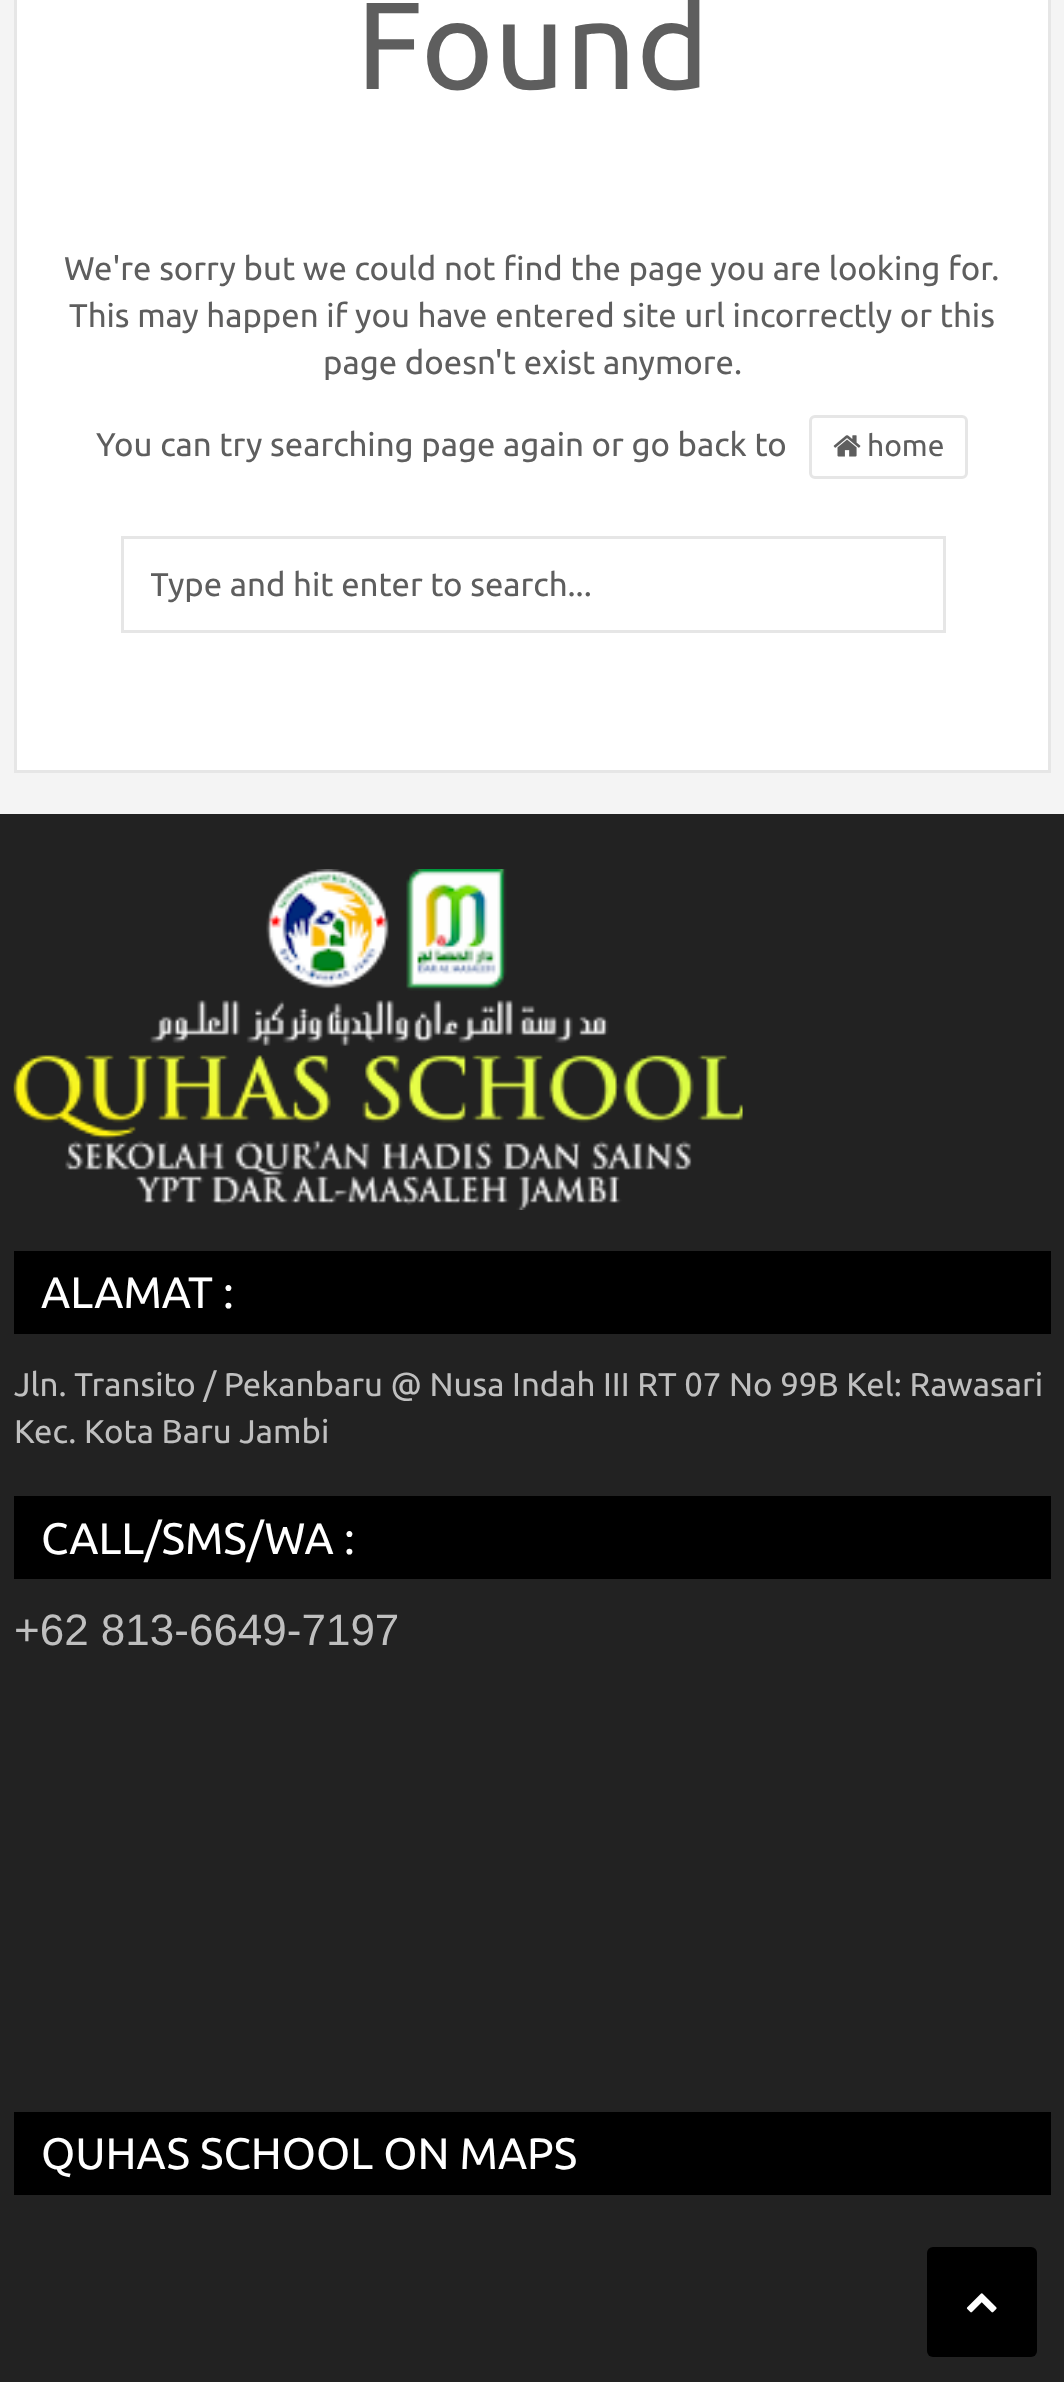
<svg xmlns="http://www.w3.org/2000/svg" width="1064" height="2382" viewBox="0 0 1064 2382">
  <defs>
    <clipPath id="clip1"><rect x="151" y="561" width="765" height="47"/></clipPath>
  </defs>
  <rect width="100%" height="100%" fill="#f4f4f4"/>
  <rect x="15.5" y="-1.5" width="1034" height="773" fill="#ffffff" stroke="#e6e6e6" stroke-width="3"/>
  <text x="356" y="89" font-family="Ubuntu" font-size="124" fill="#5e5e5e">Found</text>
  <text x="64" y="280" font-family="Ubuntu" font-size="33" fill="#5e5e5e">We're sorry but we could not find the page you are looking for.</text>
  <text x="69" y="327" font-family="Ubuntu" font-size="33" fill="#5e5e5e">This may happen if you have entered site url incorrectly or this</text>
  <text x="323" y="374" font-family="Ubuntu" font-size="33" fill="#5e5e5e">page doesn't exist anymore.</text>
  <text x="96" y="456" font-family="Ubuntu" font-size="33" fill="#5e5e5e">You can try searching page again or go back to</text>
  <rect x="810.5" y="416.5" width="156" height="61" rx="4.5" fill="none" stroke="#e6e6e6" stroke-width="3"/>
  <image x="833" y="435" width="28" height="22" href="img1.png"/>
  <text x="867" y="456" font-family="Ubuntu" font-size="30" fill="#5e5e5e">home</text>
  <rect x="122.5" y="537.5" width="822" height="94" fill="none" stroke="#e6e6e6" stroke-width="3"/>
  <g clip-path="url(#clip1)">
    <text x="150" y="596" font-family="Ubuntu" font-size="33" fill="#5e5e5e">Type and hit enter to search...</text>
  </g>
  <rect x="0" y="814" width="1064" height="1568" fill="#222222"/>
  <image x="13" y="869" width="730" height="341" href="img2.png"/>
  <rect x="14" y="1251" width="1037" height="83" fill="#000000"/>
  <text x="41" y="1308" font-family="Ubuntu" font-size="44" fill="#ffffff">ALAMAT :</text>
  <text x="14" y="1396" font-family="Ubuntu" font-size="33" fill="#bfbfbf">Jln. Transito / Pekanbaru @ Nusa Indah III RT 07 No 99B Kel: Rawasari</text>
  <text x="14" y="1443" font-family="Ubuntu" font-size="33" fill="#bfbfbf">Kec. Kota Baru Jambi</text>
  <rect x="14" y="1496" width="1037" height="83" fill="#000000"/>
  <text x="41" y="1554" font-family="Ubuntu" font-size="44" fill="#ffffff">CALL/SMS/WA :</text>
  <text x="14" y="1645" font-family="Liberation Sans" font-size="44" fill="#bfbfbf">+62 813-6649-7197</text>
  <rect x="14" y="2112" width="1037" height="83" fill="#000000"/>
  <text x="41" y="2169" font-family="Ubuntu" font-size="44" fill="#ffffff">QUHAS SCHOOL ON MAPS</text>
  <rect x="927" y="2247" width="110" height="110" rx="6" fill="#000000"/>
  <image x="966" y="2293" width="31" height="20" href="img3.png"/>
</svg>
